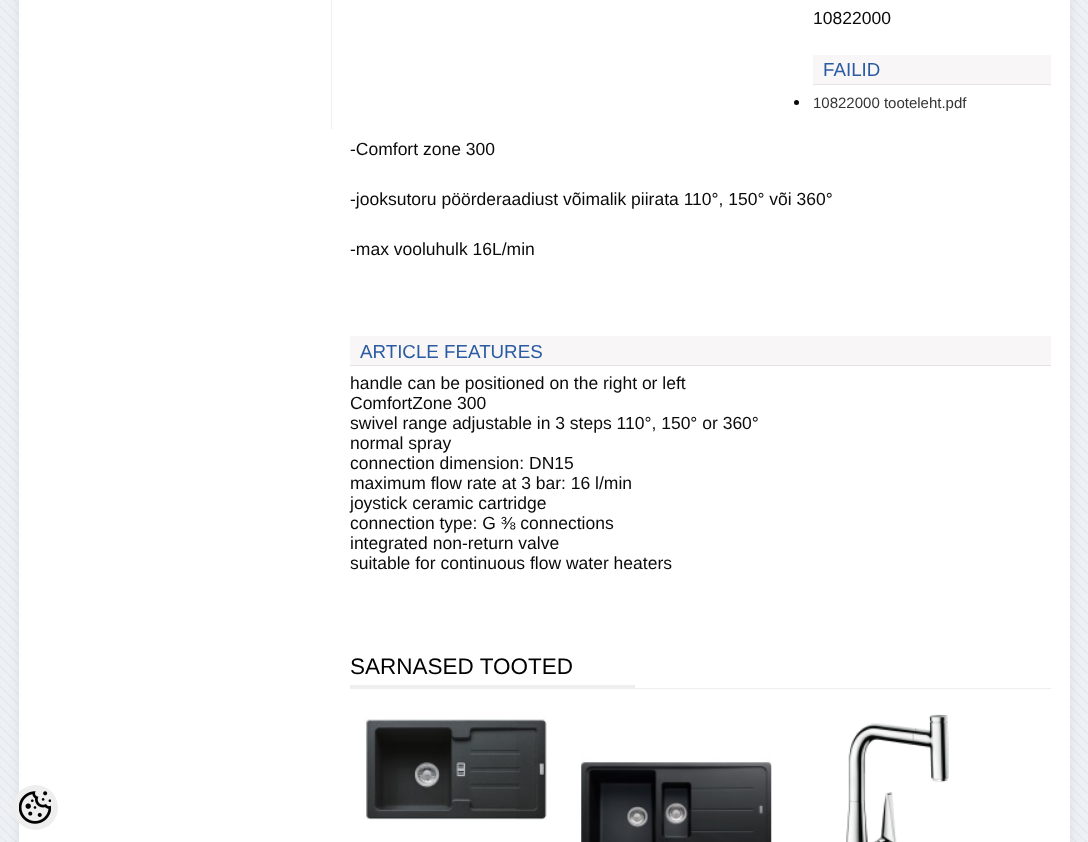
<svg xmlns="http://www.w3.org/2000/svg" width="1088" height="842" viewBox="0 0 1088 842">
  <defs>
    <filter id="blur1" x="-50%" y="-200%" width="200%" height="500%"><feGaussianBlur stdDeviation="5"/></filter>
  </defs>
  <rect width="100%" height="100%" fill="#edf0f5"/>
  <image x="0" y="0" width="1088" height="842" href="img1.png"/>
  <rect x="19" y="-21" width="1051" height="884" rx="6" fill="#000000" fill-opacity="0.08" filter="url(#blur1)"/>
  <rect x="19" y="0" width="1051" height="842" fill="#ffffff"/>
  <rect x="331" y="0" width="1" height="129" fill="#eeeeee"/>
  <text x="813" y="24" font-family="Liberation Sans" font-size="17.5" fill="#0a0a0a">10822000</text>
  <rect x="813" y="55" width="238" height="29" fill="#f8f6f6"/>
  <rect x="813" y="84" width="238" height="1" fill="#e4e4e4"/>
  <text x="823" y="76" font-family="Liberation Sans" font-size="18.75" fill="#2a5ba3">FAILID</text>
  <circle cx="796.5" cy="102.5" r="2.5" fill="#0a0a0a"/>
  <text x="813" y="108" font-family="Liberation Sans" font-size="15" fill="#333333">10822000 tooteleht.pdf</text>
  <text x="350" y="155" font-family="Liberation Sans" font-size="17.5" fill="#0a0a0a">-Comfort zone 300</text>
  <text x="350" y="205" font-family="Liberation Sans" font-size="17.5" fill="#0a0a0a">-jooksutoru pöörderaadiust võimalik piirata 110°, 150° või 360°</text>
  <text x="350" y="255" font-family="Liberation Sans" font-size="17.5" fill="#0a0a0a">-max vooluhulk 16L/min</text>
  <rect x="350" y="336" width="701" height="29" fill="#f8f6f6"/>
  <rect x="350" y="365" width="701" height="1" fill="#e4e4e4"/>
  <text x="360" y="358" font-family="Liberation Sans" font-size="18.75" fill="#2a5ba3">ARTICLE FEATURES</text>
  <text x="350" y="389" font-family="Liberation Sans" font-size="17.5" fill="#0a0a0a">handle can be positioned on the right or left</text>
  <text x="350" y="409" font-family="Liberation Sans" font-size="17.5" fill="#0a0a0a">ComfortZone 300</text>
  <text x="350" y="429" font-family="Liberation Sans" font-size="17.5" fill="#0a0a0a">swivel range adjustable in 3 steps 110°, 150° or 360°</text>
  <text x="350" y="449" font-family="Liberation Sans" font-size="17.5" fill="#0a0a0a">normal spray</text>
  <text x="350" y="469" font-family="Liberation Sans" font-size="17.5" fill="#0a0a0a">connection dimension: DN15</text>
  <text x="350" y="489" font-family="Liberation Sans" font-size="17.5" fill="#0a0a0a">maximum flow rate at 3 bar: 16 l/min</text>
  <text x="350" y="509" font-family="Liberation Sans" font-size="17.5" fill="#0a0a0a">joystick ceramic cartridge</text>
  <text x="350" y="529" font-family="Liberation Sans" font-size="17.5" fill="#0a0a0a">connection type: G ⅜ connections</text>
  <text x="350" y="549" font-family="Liberation Sans" font-size="17.5" fill="#0a0a0a">integrated non-return valve</text>
  <text x="350" y="569" font-family="Liberation Sans" font-size="17.5" fill="#0a0a0a">suitable for continuous flow water heaters</text>
  <rect x="350" y="688" width="701" height="1" fill="#eeeeee"/>
  <rect x="350" y="685" width="285" height="3" fill="#eeeeee"/>
  <text x="350" y="674" font-family="Liberation Sans" font-size="22.5" fill="#000000">SARNASED TOOTED</text>
  <image x="364" y="716" width="183" height="104" href="img2.png"/>
  <image x="581" y="756" width="191" height="86" href="img3.png"/>
  <image x="846" y="714" width="103" height="128" href="img4.png"/>
  <circle cx="35.5" cy="807.5" r="22.5" fill="#eeeeee"/>
  <image x="19" y="791" width="32" height="33" href="img5.png"/>
</svg>
